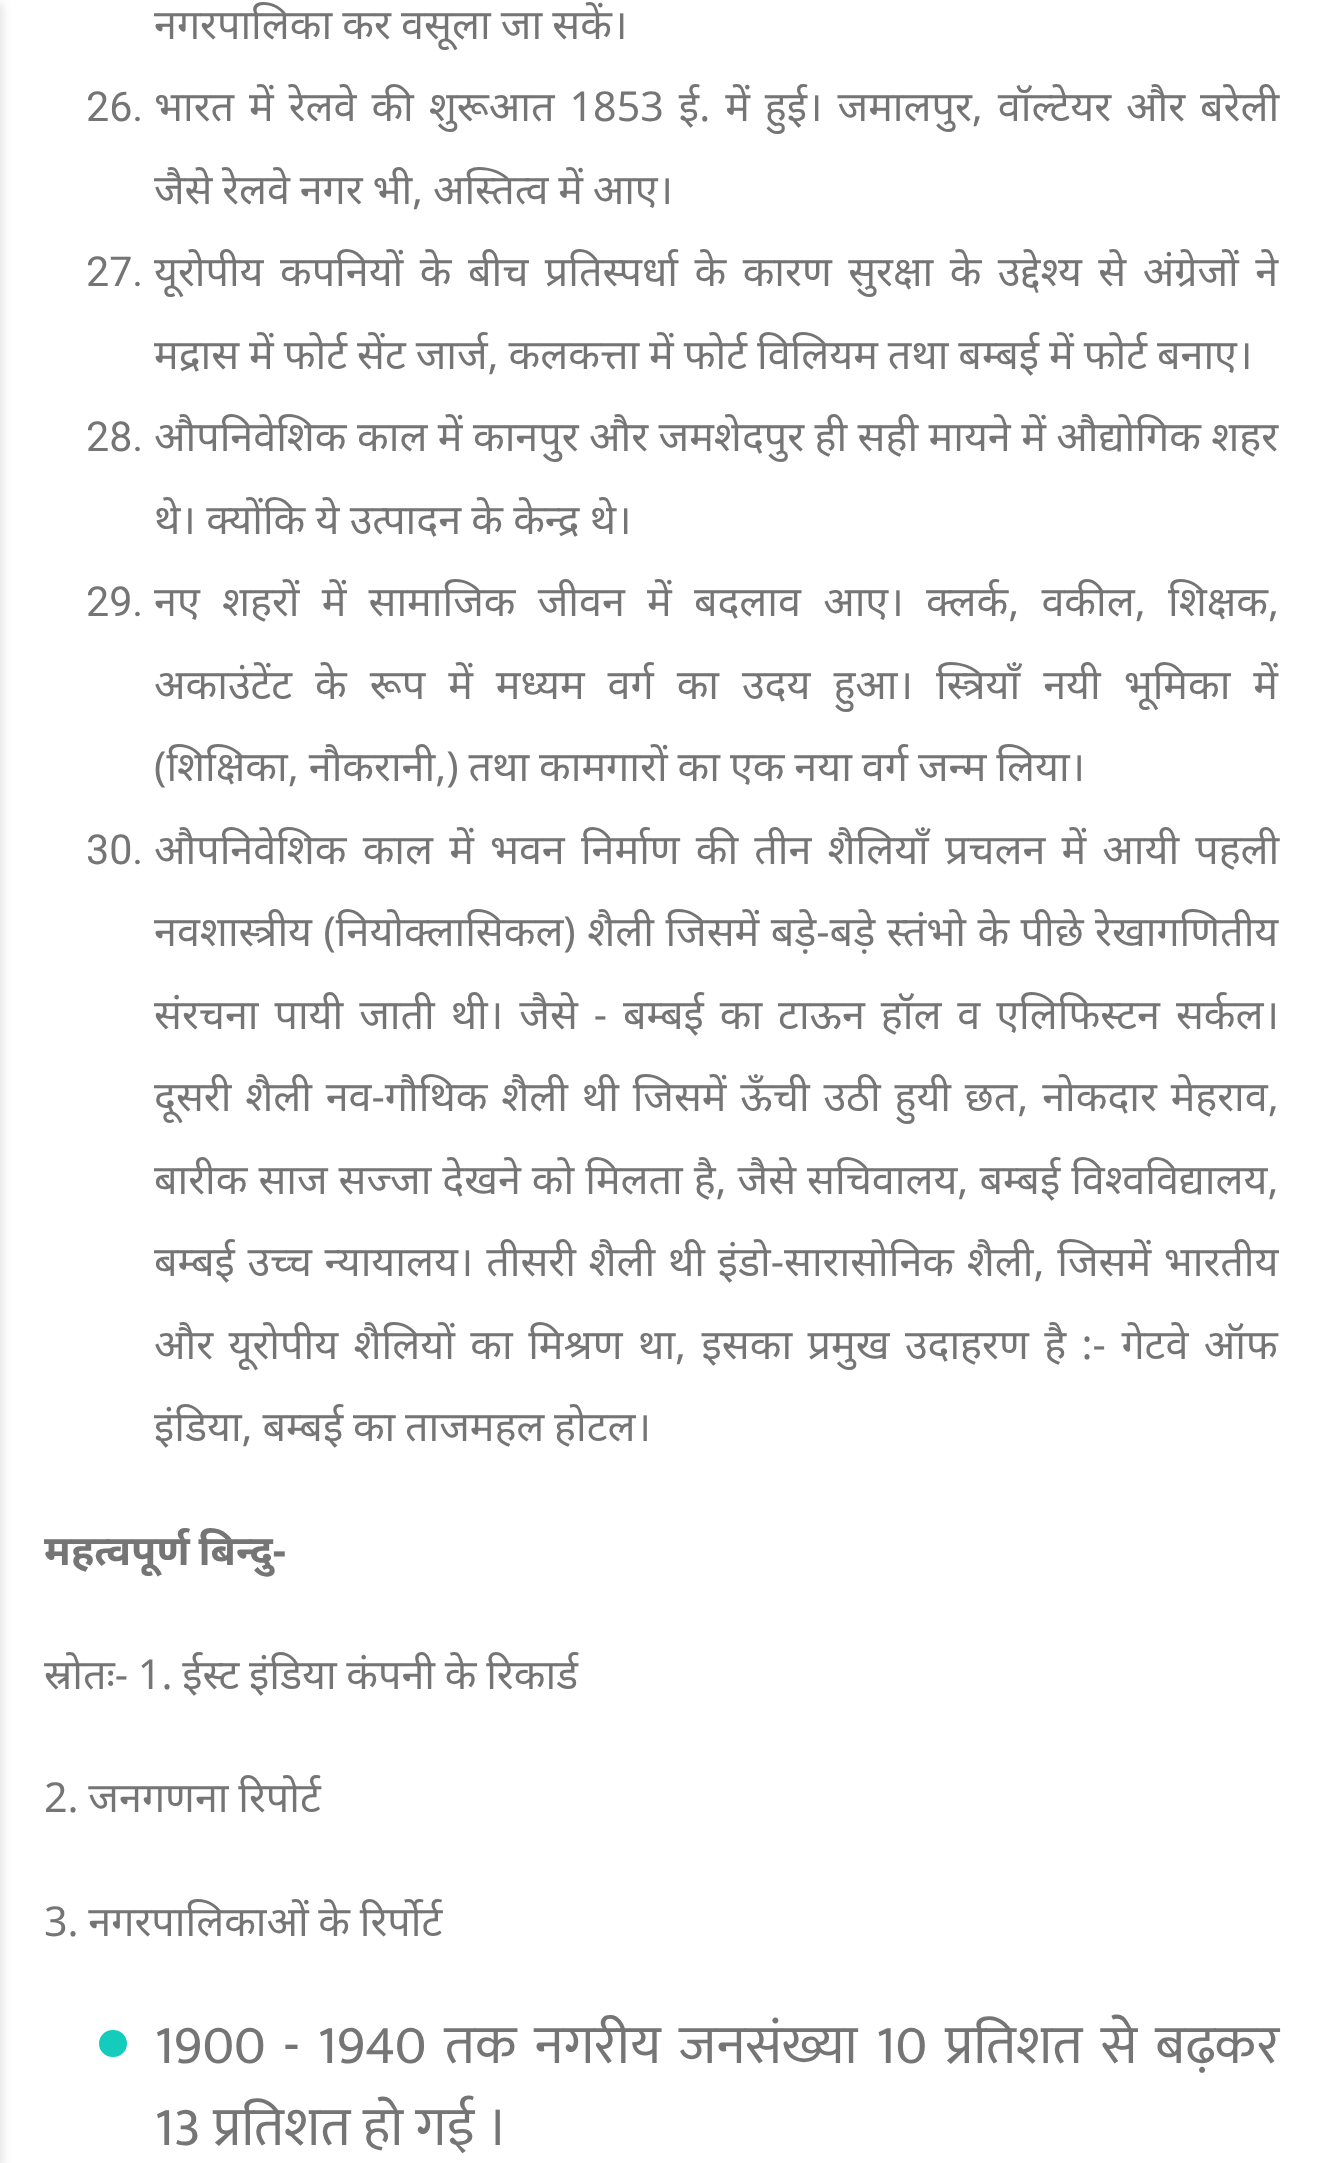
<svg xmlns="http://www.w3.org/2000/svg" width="1321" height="2163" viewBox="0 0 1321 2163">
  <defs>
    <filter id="blur1" x="-50%" y="-200%" width="200%" height="500%"><feGaussianBlur stdDeviation="4"/></filter>
  </defs>
  <rect width="100%" height="100%" fill="#ffffff"/>
  <rect x="-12" y="3" width="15" height="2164" fill="#000000" fill-opacity="0.1" filter="url(#blur1)"/>
  <text x="154" y="39" word-spacing="-0.5" font-family="Noto Sans" font-size="41.25" fill="#757575">नगरपालिका कर वसूला जा सकें।</text>
  <text x="86" y="121" font-family="Roboto" font-size="41.25" fill="#757575">26.</text>
  <text x="154" y="121" word-spacing="4.25" font-family="Noto Sans" font-size="41.25" fill="#757575">भारत में रेलवे की शुरूआत 1853 ई. में हुई। जमालपुर, वॉल्टेयर और बरेली</text>
  <text x="154" y="204" word-spacing="-1" font-family="Noto Sans" font-size="41.25" fill="#757575">जैसे रेलवे नगर भी, अस्तित्व में आए।</text>
  <text x="86" y="286" font-family="Roboto" font-size="41.25" fill="#757575">27.</text>
  <text x="154" y="286" word-spacing="5.75" font-family="Noto Sans" font-size="41.25" fill="#757575">यूरोपीय कपनियों के बीच प्रतिस्पर्धा के कारण सुरक्षा के उद्देश्य से अंग्रेजों ने</text>
  <text x="154" y="369" word-spacing="-0.75" font-family="Noto Sans" font-size="41.25" fill="#757575">मद्रास में फोर्ट सेंट जार्ज, कलकत्ता में फोर्ट विलियम तथा बम्बई में फोर्ट बनाए।</text>
  <text x="86" y="451" font-family="Roboto" font-size="41.25" fill="#757575">28.</text>
  <text x="154" y="451" word-spacing="-0.25" font-family="Noto Sans" font-size="41.25" fill="#757575">औपनिवेशिक काल में कानपुर और जमशेदपुर ही सही मायने में औद्योगिक शहर</text>
  <text x="154" y="534" word-spacing="-0.5" font-family="Noto Sans" font-size="41.25" fill="#757575">थे। क्योंकि ये उत्पादन के केन्द्र थे।</text>
  <text x="86" y="616" font-family="Roboto" font-size="41.25" fill="#757575">29.</text>
  <text x="154" y="616" word-spacing="11.5" font-family="Noto Sans" font-size="41.25" fill="#757575">नए शहरों में सामाजिक जीवन में बदलाव आए। क्लर्क, वकील, शिक्षक,</text>
  <text x="154" y="699" word-spacing="12.25" font-family="Noto Sans" font-size="41.25" fill="#757575">अकाउंटेंट के रूप में मध्यम वर्ग का उदय हुआ। स्त्रियाँ नयी भूमिका में</text>
  <text x="154" y="781" word-spacing="-0.75" font-family="Noto Sans" font-size="41.25" fill="#757575">(शिक्षिका, नौकरानी,) तथा कामगारों का एक नया वर्ग जन्म लिया।</text>
  <text x="86" y="864" font-family="Roboto" font-size="41.25" fill="#757575">30.</text>
  <text x="154" y="864" word-spacing="5.4" font-family="Noto Sans" font-size="41.25" fill="#757575">औपनिवेशिक काल में भवन निर्माण की तीन शैलियाँ प्रचलन में आयी पहली</text>
  <text x="154" y="946" word-spacing="0.75" font-family="Noto Sans" font-size="41.25" fill="#757575">नवशास्त्रीय (नियोक्लासिकल) शैली जिसमें बड़े-बड़े स्तंभो के पीछे रेखागणितीय</text>
  <text x="154" y="1029" word-spacing="5.25" font-family="Noto Sans" font-size="41.25" fill="#757575">संरचना पायी जाती थी। जैसे - बम्बई का टाऊन हॉल व एलिफिस्टन सर्कल।</text>
  <text x="154" y="1111" word-spacing="3.1" font-family="Noto Sans" font-size="41.25" fill="#757575">दूसरी शैली नव-गौथिक शैली थी जिसमें ऊँची उठी हुयी छत, नोकदार मेहराव,</text>
  <text x="154" y="1194" word-spacing="0.25" font-family="Noto Sans" font-size="41.25" fill="#757575">बारीक साज सज्जा देखने को मिलता है, जैसे सचिवालय, बम्बई विश्वविद्यालय,</text>
  <text x="154" y="1276" word-spacing="2" font-family="Noto Sans" font-size="41.25" fill="#757575">बम्बई उच्च न्यायालय। तीसरी शैली थी इंडो-सारासोनिक शैली, जिसमें भारतीय</text>
  <text x="154" y="1359" word-spacing="4.75" font-family="Noto Sans" font-size="41.25" fill="#757575">और यूरोपीय शैलियों का मिश्रण था, इसका प्रमुख उदाहरण है :- गेटवे ऑफ</text>
  <text x="154" y="1441" word-spacing="-1" font-family="Noto Sans" font-size="41.25" fill="#757575">इंडिया, बम्बई का ताजमहल होटल।</text>
  <text x="44" y="1565" word-spacing="-2" font-family="Noto Sans" font-size="41.25" font-weight="bold" fill="#757575">महत्वपूर्ण बिन्दु-</text>
  <text x="44" y="1689" word-spacing="-1" font-family="Noto Sans" font-size="41.25" fill="#757575">स्रोतः- 1. ईस्ट इंडिया कंपनी के रिकार्ड</text>
  <text x="44" y="1812" word-spacing="-1" font-family="Noto Sans" font-size="41.25" fill="#757575">2. जनगणना रिपोर्ट</text>
  <text x="44" y="1936" word-spacing="-1" font-family="Noto Sans" font-size="41.25" fill="#757575">3. नगरपालिकाओं के रिर्पोर्ट</text>
  <rect x="99" y="2030" width="28" height="27" rx="13.5" fill="#14ccbb"/>
  <text x="154" y="2063" word-spacing="5.75" font-family="Mukta" font-size="55" fill="#757575">1900 - 1940 तक नगरीय जनसंख्या 10 प्रतिशत से बढ़कर</text>
  <text x="154" y="2145" font-family="Mukta" font-size="55" fill="#757575">13 प्रतिशत हो गई ।</text>
</svg>
